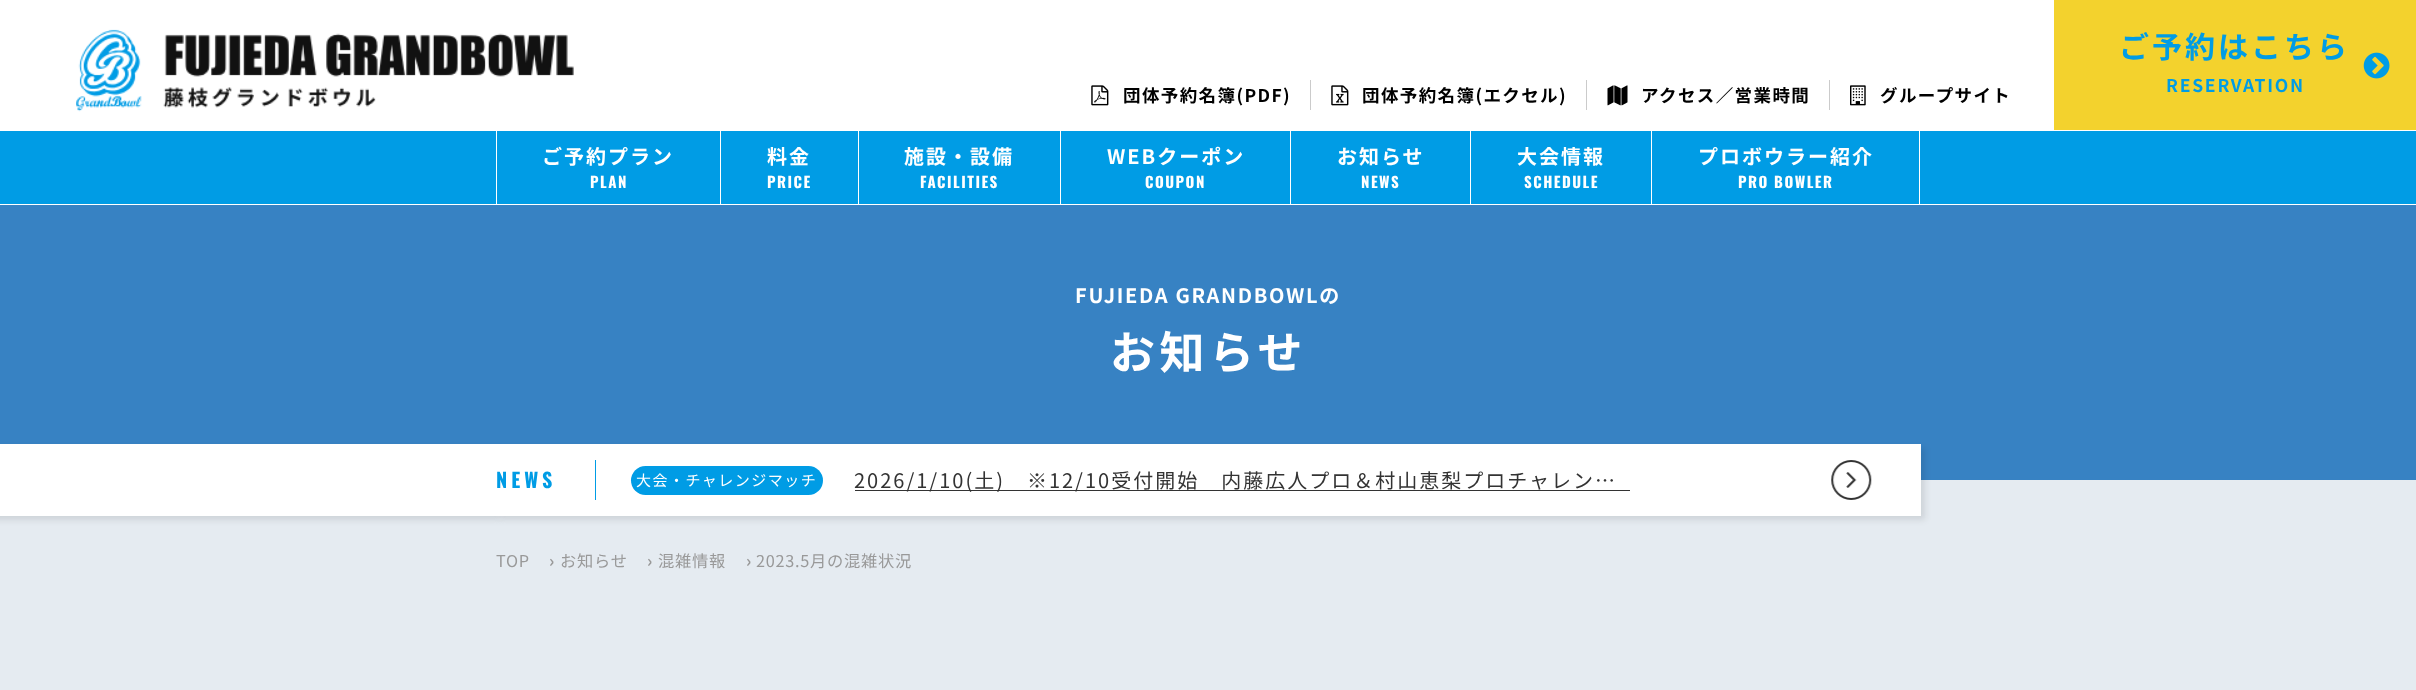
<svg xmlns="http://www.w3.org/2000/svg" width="2416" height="690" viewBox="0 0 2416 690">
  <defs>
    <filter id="blur1" x="-50%" y="-200%" width="200%" height="500%"><feGaussianBlur stdDeviation="3"/></filter>
  </defs>
  <rect width="100%" height="100%" fill="#e5ebf1"/>
  <rect x="0" y="0" width="2054" height="130" fill="#ffffff"/>
  <image x="76" y="29" width="498" height="83" href="img1.png"/>
  <rect x="2054" y="0" width="362" height="130" fill="#f3d22d"/>
  <text x="2119" y="58" font-family="Noto Sans JP" font-size="30" font-weight="bold" letter-spacing="3" fill="#009ce5">ご予約はこちら</text>
  <image x="2363" y="52" width="27" height="27" href="img2.png"/>
  <text x="2166" y="92" font-family="Noto Sans JP" font-size="17.5" font-weight="bold" letter-spacing="1.75" fill="#009ce5">RESERVATION</text>
  <image x="1091" y="85" width="18" height="21" href="img3.png"/>
  <text x="1123" y="102" font-family="Noto Sans JP" font-size="17.5" font-weight="bold" letter-spacing="1.4" fill="#000000">団体予約名簿(PDF)</text>
  <rect x="1310" y="80" width="1" height="30" fill="#cbcbcb"/>
  <image x="1331" y="85" width="18" height="21" href="img4.png"/>
  <text x="1362" y="102" font-family="Noto Sans JP" font-size="17.5" font-weight="bold" letter-spacing="1.4" fill="#000000">団体予約名簿(エクセル)</text>
  <rect x="1586" y="80" width="1" height="30" fill="#cbcbcb"/>
  <image x="1607" y="85" width="21" height="21" href="img5.png"/>
  <text x="1641" y="102" font-family="Noto Sans JP" font-size="17.5" font-weight="bold" letter-spacing="1.4" fill="#000000">アクセス／営業時間</text>
  <rect x="1829" y="80" width="1" height="30" fill="#cbcbcb"/>
  <image x="1850" y="85" width="16" height="21" href="img6.png"/>
  <text x="1880" y="102" font-family="Noto Sans JP" font-size="17.5" font-weight="bold" letter-spacing="1.4" fill="#000000">グループサイト</text>
  <rect x="0" y="131" width="2416" height="73" fill="#009ce5"/>
  <rect x="0" y="130" width="2416" height="1" fill="#ffffff"/>
  <rect x="0" y="204" width="2416" height="1" fill="#ffffff"/>
  <rect x="720" y="131" width="1" height="73" fill="#ffffff"/>
  <rect x="496" y="131" width="1" height="73" fill="#ffffff"/>
  <text x="542" y="164" font-family="Noto Sans JP" font-size="20" font-weight="bold" letter-spacing="2" fill="#ffffff">ご予約プラン</text>
  <text x="590" y="188" font-family="Oswald" font-size="15" font-weight="bold" letter-spacing="1.5" fill="#ffffff">PLAN</text>
  <rect x="858" y="131" width="1" height="73" fill="#ffffff"/>
  <text x="767" y="164" font-family="Noto Sans JP" font-size="20" font-weight="bold" letter-spacing="2" fill="#ffffff">料金</text>
  <text x="767" y="188" font-family="Oswald" font-size="15" font-weight="bold" letter-spacing="1.5" fill="#ffffff">PRICE</text>
  <rect x="1060" y="131" width="1" height="73" fill="#ffffff"/>
  <text x="904" y="164" font-family="Noto Sans JP" font-size="20" font-weight="bold" letter-spacing="2" fill="#ffffff">施設・設備</text>
  <text x="920" y="188" font-family="Oswald" font-size="15" font-weight="bold" letter-spacing="1.5" fill="#ffffff">FACILITIES</text>
  <rect x="1290" y="131" width="1" height="73" fill="#ffffff"/>
  <text x="1107" y="164" font-family="Noto Sans JP" font-size="20" font-weight="bold" letter-spacing="2" fill="#ffffff">WEBクーポン</text>
  <text x="1145" y="188" font-family="Oswald" font-size="15" font-weight="bold" letter-spacing="1.5" fill="#ffffff">COUPON</text>
  <rect x="1470" y="131" width="1" height="73" fill="#ffffff"/>
  <text x="1337" y="164" font-family="Noto Sans JP" font-size="20" font-weight="bold" letter-spacing="2" fill="#ffffff">お知らせ</text>
  <text x="1361" y="188" font-family="Oswald" font-size="15" font-weight="bold" letter-spacing="1.5" fill="#ffffff">NEWS</text>
  <rect x="1651" y="131" width="1" height="73" fill="#ffffff"/>
  <text x="1517" y="164" font-family="Noto Sans JP" font-size="20" font-weight="bold" letter-spacing="2" fill="#ffffff">大会情報</text>
  <text x="1524" y="188" font-family="Oswald" font-size="15" font-weight="bold" letter-spacing="1.5" fill="#ffffff">SCHEDULE</text>
  <rect x="1919" y="131" width="1" height="73" fill="#ffffff"/>
  <text x="1698" y="164" font-family="Noto Sans JP" font-size="20" font-weight="bold" letter-spacing="2" fill="#ffffff">プロボウラー紹介</text>
  <text x="1738" y="188" font-family="Oswald" font-size="15" font-weight="bold" letter-spacing="1.5" fill="#ffffff">PRO BOWLER</text>
  <rect x="0" y="205" width="2416" height="275" fill="#3782c3"/>
  <text x="1075" y="303" font-family="Noto Sans JP" font-size="20" font-weight="bold" letter-spacing="1.7" fill="#ffffff">FUJIEDA GRANDBOWLの</text>
  <text x="1110" y="369" font-family="Noto Sans JP" font-size="45" font-weight="bold" letter-spacing="4.5" fill="#ffffff">お知らせ</text>
  <rect x="500" y="448" width="1425" height="72" fill="#000000" fill-opacity="0.1" filter="url(#blur1)"/>
  <rect x="509" y="444" width="1412" height="72" fill="#ffffff"/>
  <rect x="-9" y="448" width="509" height="72" fill="#000000" fill-opacity="0.1" filter="url(#blur1)"/>
  <rect x="0" y="444" width="509" height="72" fill="#ffffff"/>
  <text x="496" y="488" font-family="Oswald" font-size="20" font-weight="bold" letter-spacing="4" fill="#009ce5">NEWS</text>
  <rect x="595" y="460" width="1" height="40" fill="#009ce5"/>
  <rect x="631" y="466" width="192" height="29" rx="14.5" fill="#009ce5"/>
  <text x="636" y="486" font-family="Noto Sans JP" font-size="15" letter-spacing="1.5" fill="#ffffff">大会・チャレンジマッチ</text>
  <rect x="855" y="490" width="775" height="1" fill="#333333"/>
  <text x="854" y="488" font-family="Noto Sans JP" font-size="20" letter-spacing="2" fill="#333333">2026/1/10(土)　※12/10受付開始　内藤広人プロ＆村山恵梨プロチャレン…</text>
  <image x="1831" y="460" width="41" height="40" href="img7.png"/>
  <text x="496" y="567" font-family="Noto Sans JP" font-size="16.25" letter-spacing="0.75" fill="#999999">TOP</text>
  <text x="549" y="567" font-family="Noto Sans JP" font-size="16.25" font-weight="bold" letter-spacing="0.75" fill="#999999">›</text>
  <text x="560" y="567" font-family="Noto Sans JP" font-size="16.25" letter-spacing="0.75" fill="#999999">お知らせ</text>
  <text x="647" y="567" font-family="Noto Sans JP" font-size="16.25" font-weight="bold" letter-spacing="0.75" fill="#999999">›</text>
  <text x="658" y="567" font-family="Noto Sans JP" font-size="16.25" letter-spacing="0.75" fill="#999999">混雑情報</text>
  <text x="746" y="567" font-family="Noto Sans JP" font-size="16.25" font-weight="bold" letter-spacing="0.75" fill="#999999">›</text>
  <text x="756" y="567" font-family="Noto Sans JP" font-size="16.25" letter-spacing="0.75" fill="#999999">2023.5月の混雑状況</text>
</svg>
